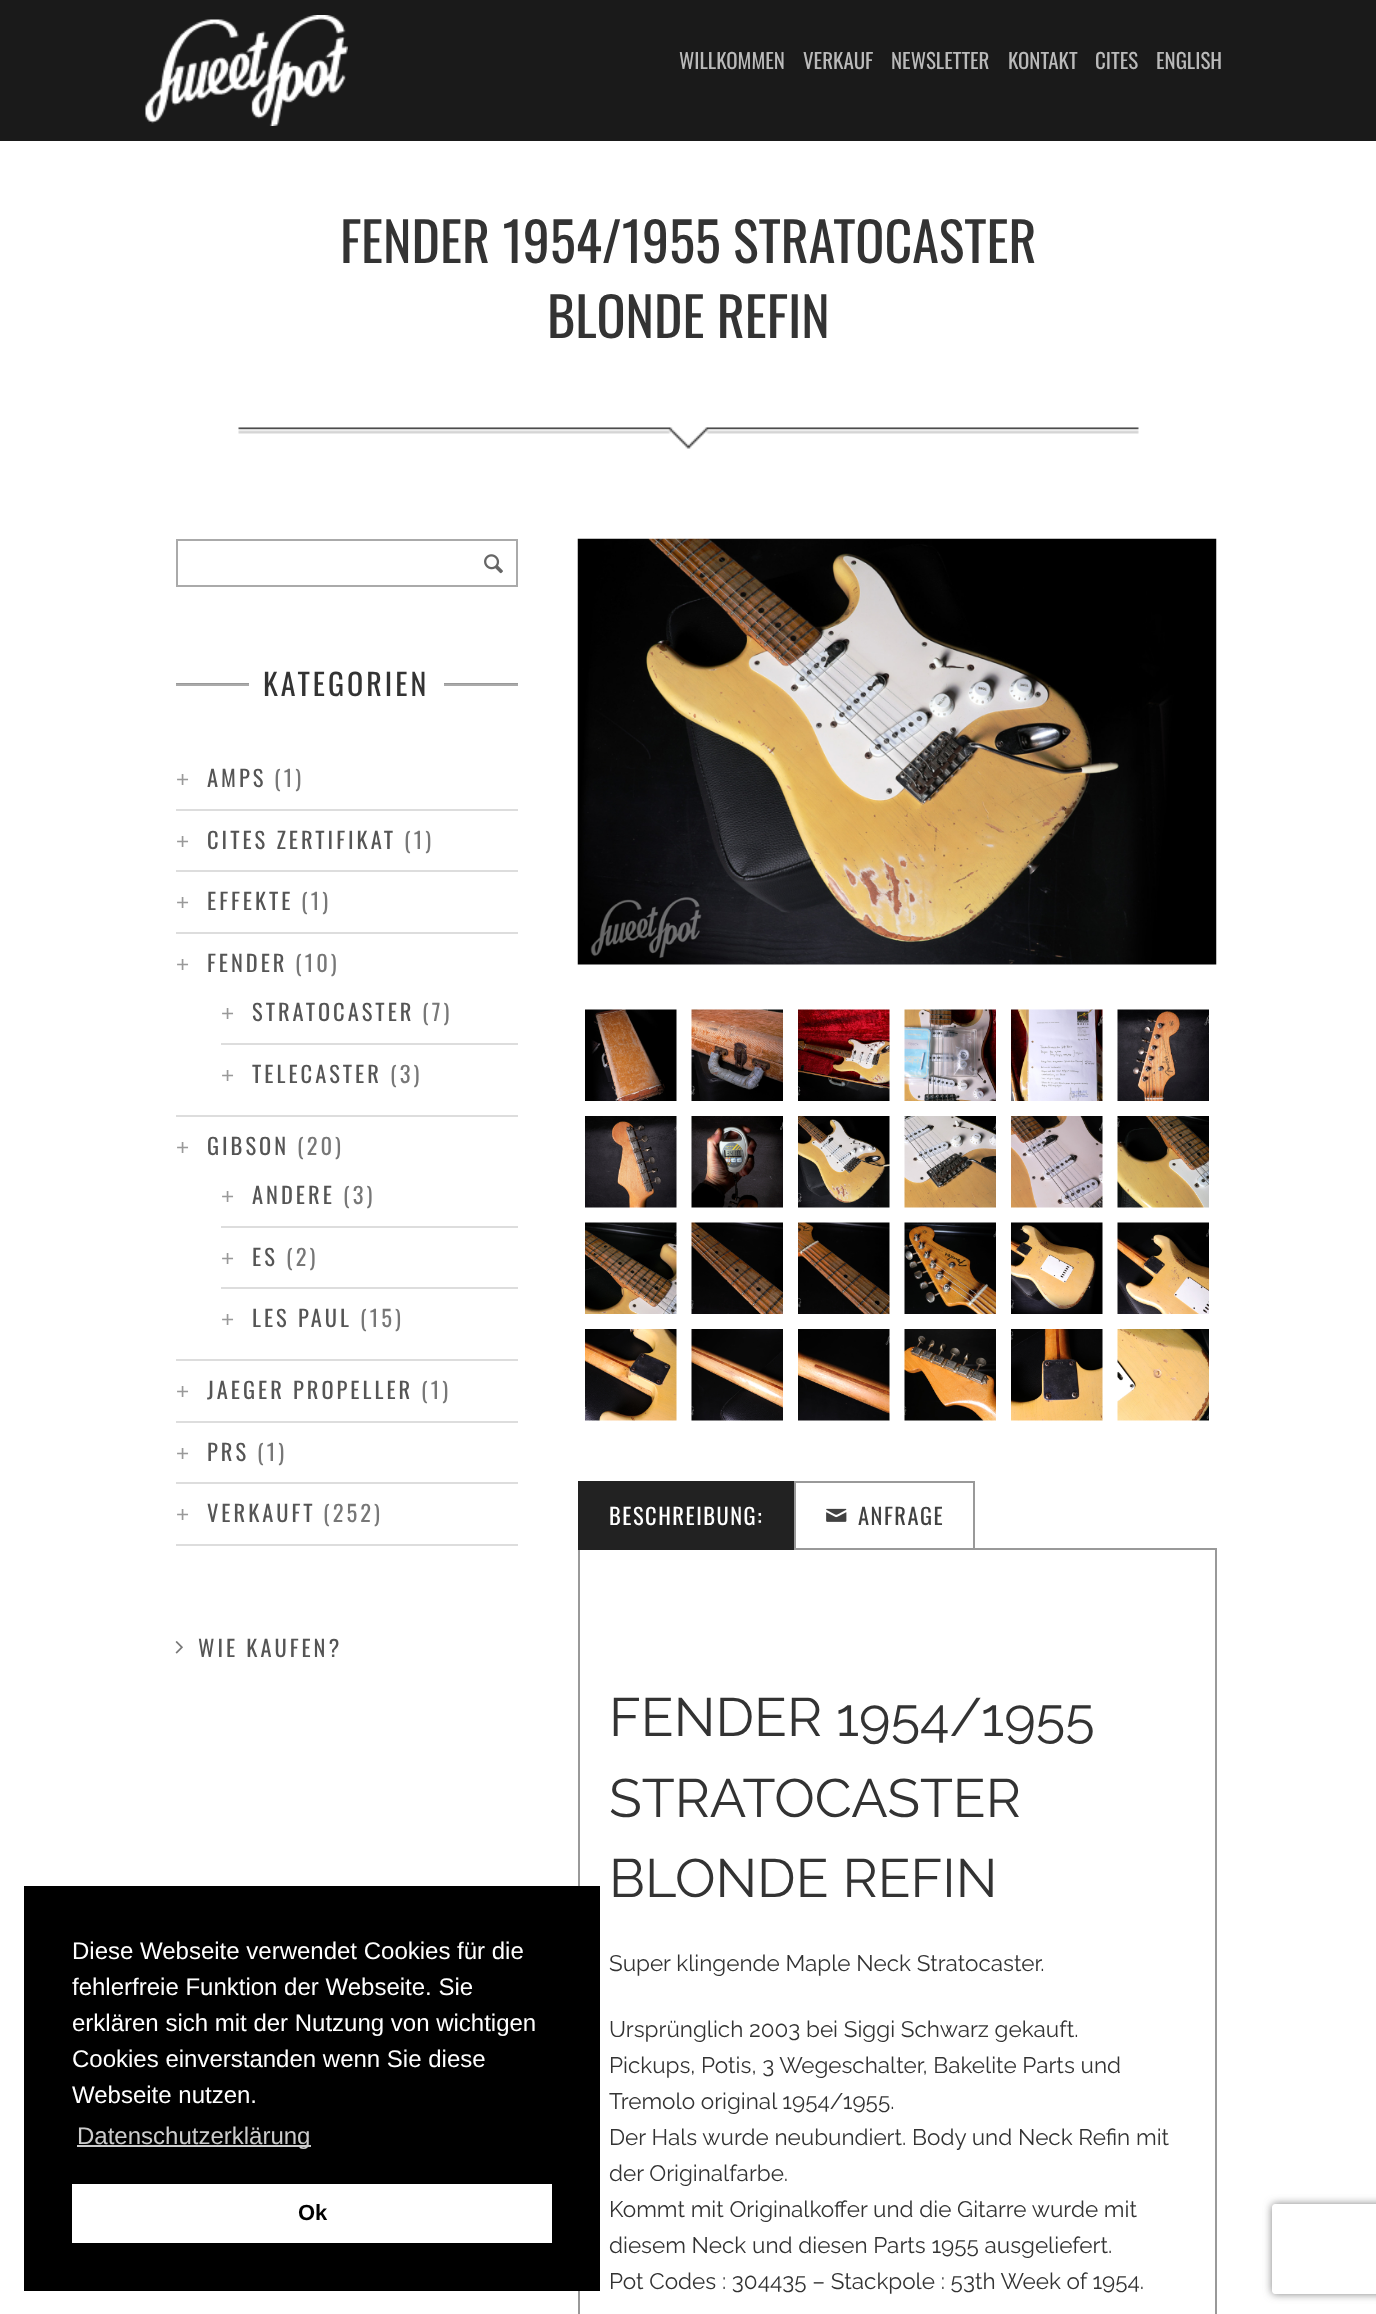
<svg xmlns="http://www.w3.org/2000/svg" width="1376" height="2314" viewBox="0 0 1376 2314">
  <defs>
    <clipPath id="clip1"><path d="M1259 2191H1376V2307H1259ZM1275 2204H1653C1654.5 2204 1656 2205.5 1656 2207V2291C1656 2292.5 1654.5 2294 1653 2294H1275C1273.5 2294 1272 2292.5 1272 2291V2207C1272 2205.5 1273.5 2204 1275 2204Z" clip-rule="evenodd"/></clipPath>
    <filter id="blur1" x="-50%" y="-200%" width="200%" height="500%"><feGaussianBlur stdDeviation="4"/></filter>
  </defs>
  <rect width="100%" height="100%" fill="#ffffff"/>
  <rect x="0" y="0" width="1376" height="141" fill="#1a1a1a"/>
  <image x="145" y="15" width="203" height="111" href="img1.png"/>
  <text x="679" y="69" font-family="Oswald" font-size="21" fill="#bababa">WILLKOMMEN</text>
  <text x="803" y="69" font-family="Oswald" font-size="21" fill="#bababa">VERKAUF</text>
  <text x="891" y="69" font-family="Oswald" font-size="21" fill="#bababa">NEWSLETTER</text>
  <text x="1008" y="69" font-family="Oswald" font-size="21" fill="#bababa">KONTAKT</text>
  <text x="1095" y="69" font-family="Oswald" font-size="21" fill="#bababa">CITES</text>
  <text x="1156" y="69" font-family="Oswald" font-size="21" fill="#bababa">ENGLISH</text>
  <image x="238" y="427" width="901" height="22" href="img2.png"/>
  <text x="340" y="263" font-family="Oswald" font-size="54" fill="#333333">FENDER 1954/1955 STRATOCASTER</text>
  <text x="547" y="338" font-family="Oswald" font-size="54" fill="#333333">BLONDE REFIN</text>
  <rect x="177" y="540" width="340" height="46" fill="none" stroke="#aaaaaa" stroke-width="2"/>
  <image x="484" y="554" width="19" height="20" href="img3.png"/>
  <rect x="176" y="683" width="73" height="1" fill="#999999"/>
  <rect x="176" y="684" width="73" height="2" fill="#aaaaaa"/>
  <text x="263" y="696" font-family="Oswald" font-size="30" letter-spacing="3" fill="#333333">KATEGORIEN</text>
  <rect x="444" y="683" width="74" height="1" fill="#999999"/>
  <rect x="444" y="684" width="74" height="2" fill="#aaaaaa"/>
  <rect x="176" y="809" width="342" height="2" fill="#dddddd"/>
  <text x="176" y="787" font-family="Liberation Sans" font-size="22.5" letter-spacing="3" fill="#999999">+</text>
  <text x="207" y="787" font-family="Oswald" font-size="22.5" letter-spacing="3" fill="#555555">AMPS</text>
  <text x="274" y="787" font-family="Oswald" font-size="22.5" letter-spacing="3" fill="#777777">(1)</text>
  <rect x="176" y="870" width="342" height="2" fill="#dddddd"/>
  <text x="176" y="849" font-family="Liberation Sans" font-size="22.5" letter-spacing="3" fill="#999999">+</text>
  <text x="207" y="849" font-family="Oswald" font-size="22.5" letter-spacing="3" fill="#555555">CITES ZERTIFIKAT</text>
  <text x="404" y="849" font-family="Oswald" font-size="22.5" letter-spacing="3" fill="#777777">(1)</text>
  <rect x="176" y="932" width="342" height="2" fill="#dddddd"/>
  <text x="176" y="910" font-family="Liberation Sans" font-size="22.5" letter-spacing="3" fill="#999999">+</text>
  <text x="207" y="910" font-family="Oswald" font-size="22.5" letter-spacing="3" fill="#555555">EFFEKTE</text>
  <text x="301" y="910" font-family="Oswald" font-size="22.5" letter-spacing="3" fill="#777777">(1)</text>
  <rect x="176" y="1115" width="342" height="2" fill="#dddddd"/>
  <text x="176" y="972" font-family="Liberation Sans" font-size="22.5" letter-spacing="3" fill="#999999">+</text>
  <text x="207" y="972" font-family="Oswald" font-size="22.5" letter-spacing="3" fill="#555555">FENDER</text>
  <text x="295" y="972" font-family="Oswald" font-size="22.5" letter-spacing="3" fill="#777777">(10)</text>
  <rect x="221" y="1043" width="297" height="2" fill="#dddddd"/>
  <text x="221" y="1021" font-family="Liberation Sans" font-size="22.5" letter-spacing="3" fill="#999999">+</text>
  <text x="252" y="1021" font-family="Oswald" font-size="22.5" letter-spacing="3" fill="#555555">STRATOCASTER</text>
  <text x="422" y="1021" font-family="Oswald" font-size="22.5" letter-spacing="3" fill="#777777">(7)</text>
  <text x="221" y="1083" font-family="Liberation Sans" font-size="22.5" letter-spacing="3" fill="#999999">+</text>
  <text x="252" y="1083" font-family="Oswald" font-size="22.5" letter-spacing="3" fill="#555555">TELECASTER</text>
  <text x="390" y="1083" font-family="Oswald" font-size="22.5" letter-spacing="3" fill="#777777">(3)</text>
  <rect x="176" y="1359" width="342" height="2" fill="#dddddd"/>
  <text x="176" y="1155" font-family="Liberation Sans" font-size="22.5" letter-spacing="3" fill="#999999">+</text>
  <text x="207" y="1155" font-family="Oswald" font-size="22.5" letter-spacing="3" fill="#555555">GIBSON</text>
  <text x="297" y="1155" font-family="Oswald" font-size="22.5" letter-spacing="3" fill="#777777">(20)</text>
  <rect x="221" y="1226" width="297" height="2" fill="#dddddd"/>
  <text x="221" y="1204" font-family="Liberation Sans" font-size="22.5" letter-spacing="3" fill="#999999">+</text>
  <text x="252" y="1204" font-family="Oswald" font-size="22.5" letter-spacing="3" fill="#555555">ANDERE</text>
  <text x="343" y="1204" font-family="Oswald" font-size="22.5" letter-spacing="3" fill="#777777">(3)</text>
  <rect x="221" y="1287" width="297" height="2" fill="#dddddd"/>
  <text x="221" y="1266" font-family="Liberation Sans" font-size="22.5" letter-spacing="3" fill="#999999">+</text>
  <text x="252" y="1266" font-family="Oswald" font-size="22.5" letter-spacing="3" fill="#555555">ES</text>
  <text x="286" y="1266" font-family="Oswald" font-size="22.5" letter-spacing="3" fill="#777777">(2)</text>
  <text x="221" y="1327" font-family="Liberation Sans" font-size="22.5" letter-spacing="3" fill="#999999">+</text>
  <text x="252" y="1327" font-family="Oswald" font-size="22.5" letter-spacing="3" fill="#555555">LES PAUL</text>
  <text x="360" y="1327" font-family="Oswald" font-size="22.5" letter-spacing="3" fill="#777777">(15)</text>
  <rect x="176" y="1421" width="342" height="2" fill="#dddddd"/>
  <text x="176" y="1399" font-family="Liberation Sans" font-size="22.5" letter-spacing="3" fill="#999999">+</text>
  <text x="207" y="1399" font-family="Oswald" font-size="22.5" letter-spacing="3" fill="#555555">JAEGER PROPELLER</text>
  <text x="421" y="1399" font-family="Oswald" font-size="22.5" letter-spacing="3" fill="#777777">(1)</text>
  <rect x="176" y="1482" width="342" height="2" fill="#dddddd"/>
  <text x="176" y="1461" font-family="Liberation Sans" font-size="22.5" letter-spacing="3" fill="#999999">+</text>
  <text x="207" y="1461" font-family="Oswald" font-size="22.5" letter-spacing="3" fill="#555555">PRS</text>
  <text x="257" y="1461" font-family="Oswald" font-size="22.5" letter-spacing="3" fill="#777777">(1)</text>
  <rect x="176" y="1544" width="342" height="2" fill="#dddddd"/>
  <text x="176" y="1522" font-family="Liberation Sans" font-size="22.5" letter-spacing="3" fill="#999999">+</text>
  <text x="207" y="1522" font-family="Oswald" font-size="22.5" letter-spacing="3" fill="#555555">VERKAUFT</text>
  <text x="323" y="1522" font-family="Oswald" font-size="22.5" letter-spacing="3" fill="#777777">(252)</text>
  <image x="175" y="1641" width="8" height="13" href="img4.png"/>
  <text x="198" y="1657" font-family="Oswald" font-size="22.5" letter-spacing="3" fill="#555555">WIE KAUFEN?</text>
  <image x="577" y="538" width="640" height="427" href="img5.png"/>
  <image x="585" y="1009" width="92" height="92" href="img6.png"/>
  <image x="691" y="1009" width="92" height="92" href="img7.png"/>
  <image x="798" y="1009" width="92" height="92" href="img8.png"/>
  <image x="904" y="1009" width="92" height="92" href="img9.png"/>
  <image x="1011" y="1009" width="92" height="92" href="img10.png"/>
  <image x="1117" y="1009" width="92" height="92" href="img11.png"/>
  <image x="585" y="1116" width="92" height="92" href="img12.png"/>
  <image x="691" y="1116" width="92" height="92" href="img13.png"/>
  <image x="798" y="1116" width="92" height="92" href="img14.png"/>
  <image x="904" y="1116" width="92" height="92" href="img15.png"/>
  <image x="1011" y="1116" width="92" height="92" href="img16.png"/>
  <image x="1117" y="1116" width="92" height="92" href="img17.png"/>
  <image x="585" y="1222" width="92" height="92" href="img18.png"/>
  <image x="691" y="1222" width="92" height="92" href="img19.png"/>
  <image x="798" y="1222" width="92" height="92" href="img20.png"/>
  <image x="904" y="1222" width="92" height="92" href="img21.png"/>
  <image x="1011" y="1222" width="92" height="92" href="img22.png"/>
  <image x="1117" y="1222" width="92" height="92" href="img23.png"/>
  <image x="585" y="1329" width="92" height="92" href="img24.png"/>
  <image x="691" y="1329" width="92" height="92" href="img25.png"/>
  <image x="798" y="1329" width="92" height="92" href="img26.png"/>
  <image x="904" y="1329" width="92" height="92" href="img27.png"/>
  <image x="1011" y="1329" width="92" height="92" href="img28.png"/>
  <image x="1117" y="1329" width="92" height="92" href="img29.png"/>
  <rect x="579" y="1549" width="637" height="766" fill="none" stroke="#999999" stroke-width="2"/>
  <rect x="578" y="1481" width="216" height="69" fill="#222222"/>
  <text x="609" y="1525" font-family="Oswald" font-size="22.5" letter-spacing="1.5" fill="#ffffff">BESCHREIBUNG:</text>
  <rect x="795" y="1482" width="179" height="67" fill="none" stroke="#999999" stroke-width="2"/>
  <image x="826" y="1508" width="21" height="14" href="img30.png"/>
  <text x="858" y="1525" font-family="Oswald" font-size="22.5" letter-spacing="1.5" fill="#414141">ANFRAGE</text>
  <text x="609" y="1736" font-family="Raleway" font-size="54" font-weight="100" fill="#333333">FENDER 1954/1955</text>
  <text x="609" y="1817" font-family="Raleway" font-size="54" font-weight="100" fill="#333333">STRATOCASTER</text>
  <text x="609" y="1897" font-family="Raleway" font-size="54" font-weight="100" fill="#333333">BLONDE REFIN</text>
  <text x="609" y="1971" font-family="Raleway" font-size="22.5" font-weight="100" fill="#333333">Super klingende Maple Neck Stratocaster.</text>
  <text x="609" y="2037" font-family="Raleway" font-size="22.5" font-weight="100" fill="#333333">Ursprünglich 2003 bei Siggi Schwarz gekauft.</text>
  <text x="609" y="2073" font-family="Raleway" font-size="22.5" font-weight="100" fill="#333333">Pickups, Potis, 3 Wegeschalter, Bakelite Parts und</text>
  <text x="609" y="2109" font-family="Raleway" font-size="22.5" font-weight="100" fill="#333333">Tremolo original 1954/1955.</text>
  <text x="609" y="2145" font-family="Raleway" font-size="22.5" font-weight="100" fill="#333333">Der Hals wurde neubundiert. Body und Neck Refin mit</text>
  <text x="609" y="2181" font-family="Raleway" font-size="22.5" font-weight="100" fill="#333333">der Originalfarbe.</text>
  <text x="609" y="2217" font-family="Raleway" font-size="22.5" font-weight="100" fill="#333333">Kommt mit Originalkoffer und die Gitarre wurde mit</text>
  <text x="609" y="2253" font-family="Raleway" font-size="22.5" font-weight="100" fill="#333333">diesem Neck und diesen Parts 1955 ausgeliefert.</text>
  <text x="609" y="2289" font-family="Raleway" font-size="22.5" font-weight="100" fill="#333333">Pot Codes : 304435 – Stackpole : 53th Week of 1954.</text>
  <rect x="24" y="1886" width="576" height="405" fill="#000000"/>
  <text x="72" y="1959" font-family="Liberation Sans" font-size="24" fill="#ffffff">Diese Webseite verwendet Cookies für die</text>
  <text x="72" y="1995" font-family="Liberation Sans" font-size="24" fill="#ffffff">fehlerfreie Funktion der Webseite. Sie</text>
  <text x="72" y="2031" font-family="Liberation Sans" font-size="24" fill="#ffffff">erklären sich mit der Nutzung von wichtigen</text>
  <text x="72" y="2067" font-family="Liberation Sans" font-size="24" fill="#ffffff">Cookies einverstanden wenn Sie diese</text>
  <text x="72" y="2103" font-family="Liberation Sans" font-size="24" fill="#ffffff">Webseite nutzen.</text>
  <rect x="77" y="2145" width="234" height="2" fill="#cccccc"/>
  <text x="77" y="2144" font-family="Liberation Sans" font-size="24" fill="#cccccc">Datenschutzerklärung</text>
  <rect x="72" y="2184" width="480" height="59" fill="#ffffff"/>
  <text x="298" y="2220" font-family="Liberation Sans" font-size="22" font-weight="bold" fill="#000000">Ok</text>
  <g clip-path="url(#clip1)">
    <rect x="1272" y="2204" width="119" height="90" rx="3" fill="#808080" filter="url(#blur1)"/>
  </g>
</svg>
